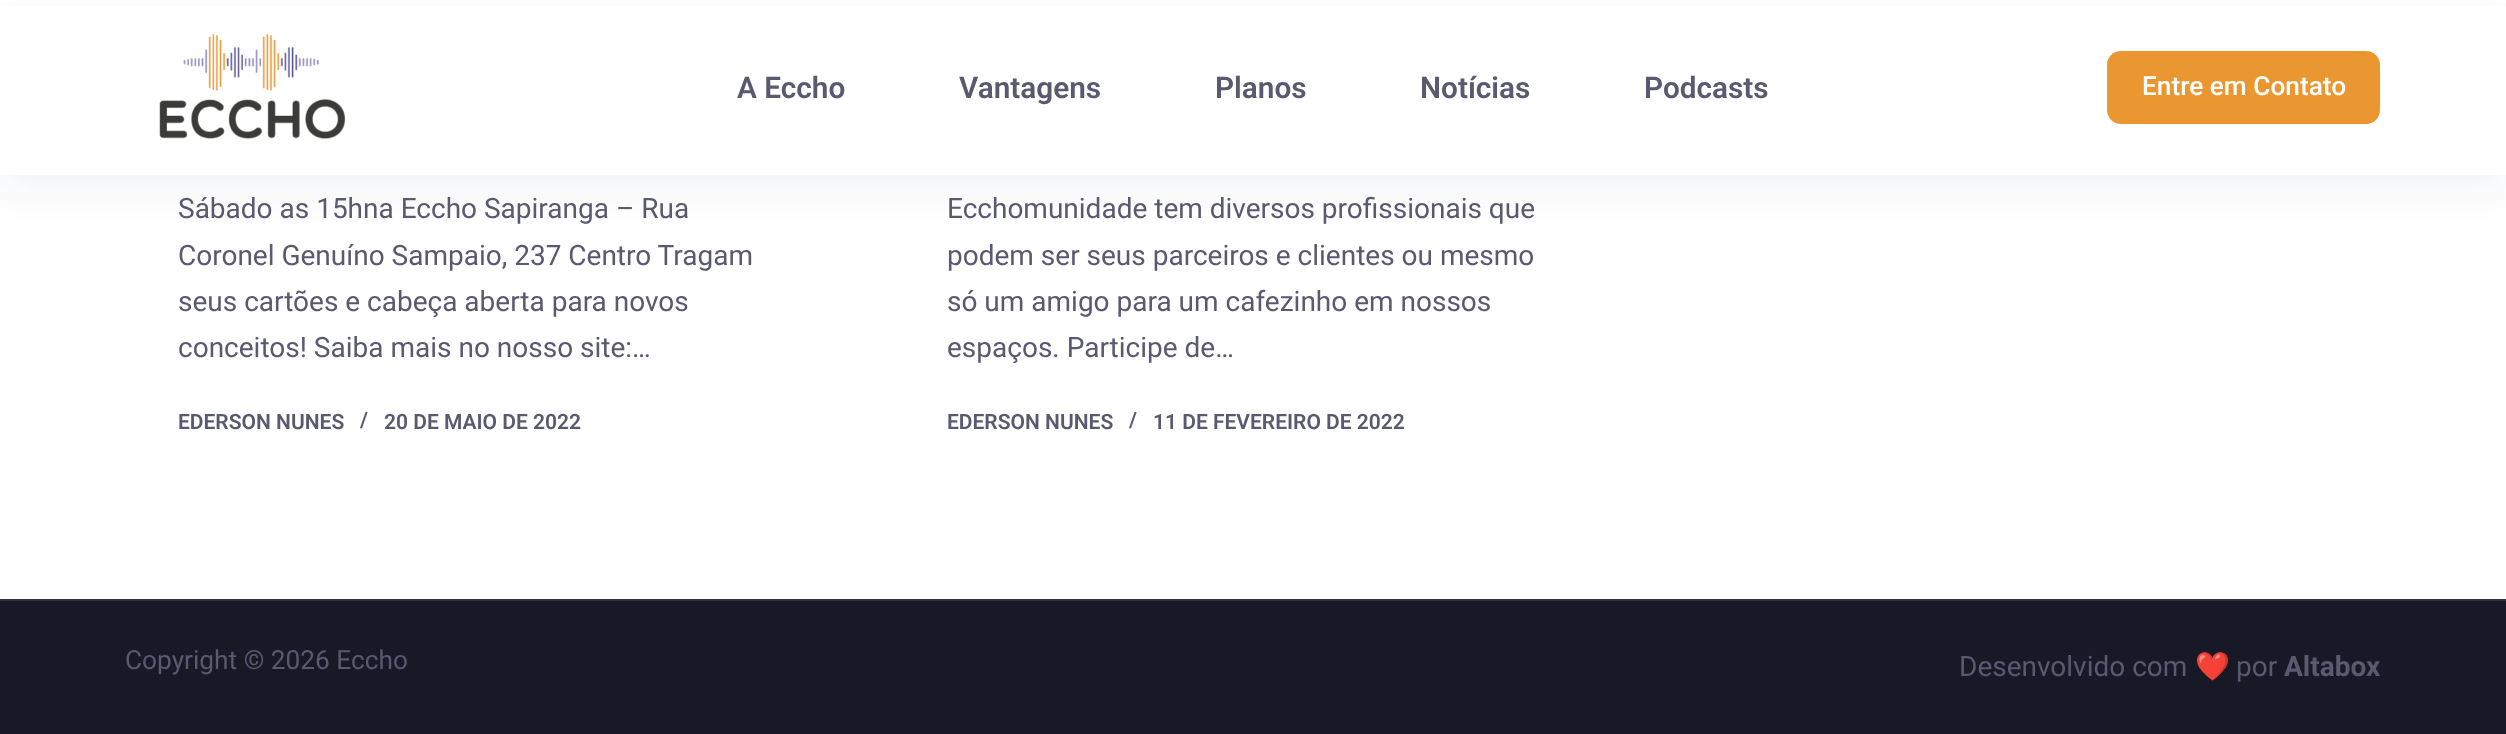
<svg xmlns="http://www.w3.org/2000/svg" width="2506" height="734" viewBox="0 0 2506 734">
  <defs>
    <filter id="blur1" x="-50%" y="-200%" width="200%" height="500%"><feGaussianBlur stdDeviation="17.5"/></filter>
  </defs>
  <rect width="100%" height="100%" fill="#ffffff"/>
  <rect x="0" y="18" width="2506" height="175" fill="#2c3e50" fill-opacity="0.05" filter="url(#blur1)"/>
  <rect x="0" y="6" width="2506" height="169" fill="#ffffff"/>
  <image x="159" y="34" width="187" height="105" href="img1.png"/>
  <text x="737" y="98" font-family="Roboto" font-size="29.75" font-weight="600" fill="#595970">A Eccho</text>
  <text x="959" y="98" font-family="Roboto" font-size="29.75" font-weight="600" fill="#595970">Vantagens</text>
  <text x="1215" y="98" font-family="Roboto" font-size="29.75" font-weight="600" fill="#595970">Planos</text>
  <text x="1420" y="98" font-family="Roboto" font-size="29.75" font-weight="600" fill="#595970">Notícias</text>
  <text x="1644" y="98" font-family="Roboto" font-size="29.75" font-weight="600" fill="#595970">Podcasts</text>
  <rect x="2107" y="51" width="273" height="73" rx="14" fill="#ea9732"/>
  <text x="2142" y="95" font-family="Roboto" font-size="26.25" font-weight="500" fill="#ffffff">Entre em Contato</text>
  <text x="178" y="218" font-family="Roboto" font-size="28" fill="#595970">Sábado as 15hna Eccho Sapiranga – Rua</text>
  <text x="178" y="265" font-family="Roboto" font-size="28" fill="#595970">Coronel Genuíno Sampaio, 237 Centro Tragam</text>
  <text x="178" y="311" font-family="Roboto" font-size="28" fill="#595970">seus cartões e cabeça aberta para novos</text>
  <text x="178" y="357" font-family="Roboto" font-size="28" fill="#595970">conceitos! Saiba mais no nosso site:…</text>
  <text x="178" y="429" font-family="Roboto" font-size="21" font-weight="600" fill="#595970">EDERSON NUNES</text>
  <text x="360" y="427" font-family="Roboto" font-size="21" font-weight="600" fill="#595970">/</text>
  <text x="384" y="429" font-family="Roboto" font-size="21" font-weight="600" fill="#595970">20 DE MAIO DE 2022</text>
  <text x="947" y="218" font-family="Roboto" font-size="28" fill="#595970">Ecchomunidade tem diversos profissionais que</text>
  <text x="947" y="265" font-family="Roboto" font-size="28" fill="#595970">podem ser seus parceiros e clientes ou mesmo</text>
  <text x="947" y="311" font-family="Roboto" font-size="28" fill="#595970">só um amigo para um cafezinho em nossos</text>
  <text x="947" y="357" font-family="Roboto" font-size="28" fill="#595970">espaços. Participe de…</text>
  <text x="947" y="429" font-family="Roboto" font-size="21" font-weight="600" fill="#595970">EDERSON NUNES</text>
  <text x="1129" y="427" font-family="Roboto" font-size="21" font-weight="600" fill="#595970">/</text>
  <text x="1153" y="429" font-family="Roboto" font-size="21" font-weight="600" fill="#595970">11 DE FEVEREIRO DE 2022</text>
  <rect x="0" y="601" width="2506" height="133" fill="#171927"/>
  <rect x="0" y="599" width="2506" height="2" fill="#2e303d"/>
  <text x="125" y="669" font-family="Roboto" font-size="26.25" fill="#595970">Copyright © 2026 Eccho</text>
  <text x="1959" y="676" font-family="Roboto" font-size="28" fill="#595970">Desenvolvido com</text>
  <text x="2195" y="676" font-family="Noto Color Emoji" font-size="28" fill="#595970">❤️</text>
  <text x="2236" y="676" font-family="Roboto" font-size="28" fill="#595970">por</text>
  <text x="2284" y="676" font-family="Roboto" font-size="28" font-weight="bold" fill="#595970">Altabox</text>
</svg>
